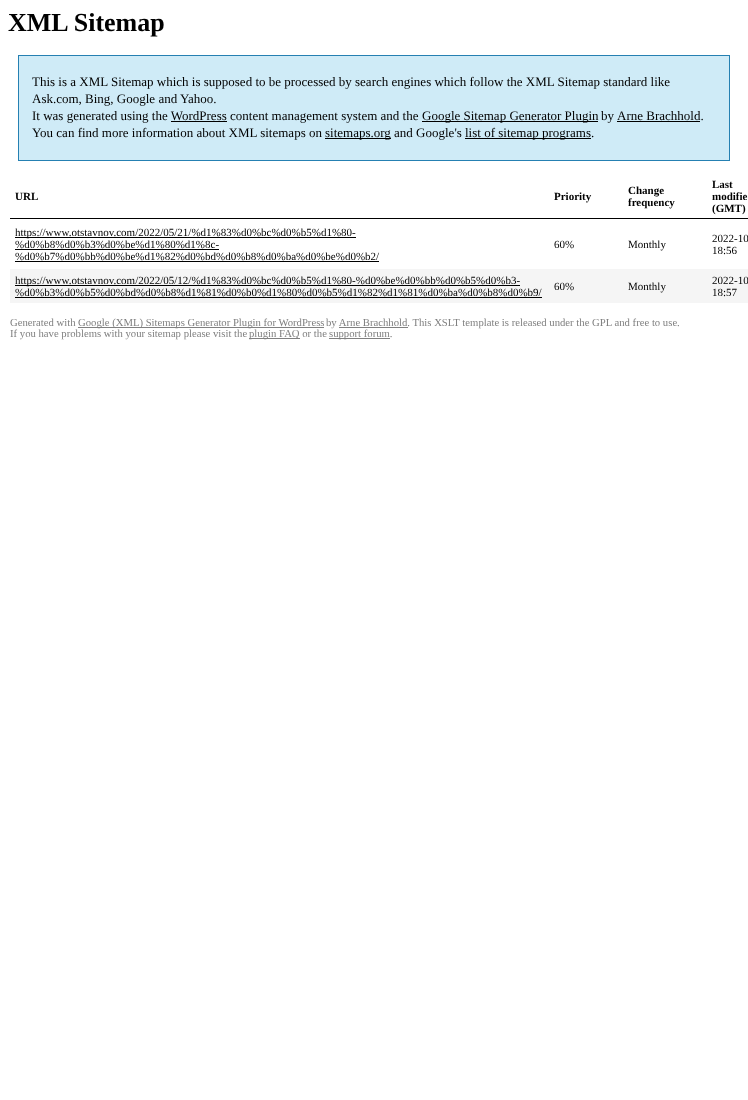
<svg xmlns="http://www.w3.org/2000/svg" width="748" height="1100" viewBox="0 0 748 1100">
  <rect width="100%" height="100%" fill="#ffffff"/>
  <text x="8" y="31" font-family="Liberation Serif" font-size="26" font-weight="bold" fill="#000000">XML Sitemap</text>
  <rect x="18.5" y="55.5" width="711" height="105" fill="#cfebf7" stroke="#2580b2"/>
  <text x="32" y="86" font-family="Liberation Serif" font-size="13" fill="#000000">This is a XML Sitemap which is supposed to be processed by search engines which follow the XML Sitemap standard like</text>
  <text x="32" y="103" font-family="Liberation Serif" font-size="13" fill="#000000">Ask.com, Bing, Google and Yahoo.</text>
  <text x="32" y="120" font-family="Liberation Serif" font-size="13" fill="#000000">It was generated using the WordPress content management system and the</text>
  <rect x="422" y="121" width="176" height="1" fill="#000000"/>
  <text x="422" y="120" font-family="Liberation Serif" font-size="13" fill="#000000">Google Sitemap Generator Plugin</text>
  <text x="601" y="120" font-family="Liberation Serif" font-size="13" fill="#000000">by</text>
  <text x="617" y="120" font-family="Liberation Serif" font-size="13" fill="#000000">Arne Brachhold.</text>
  <rect x="617" y="121" width="83" height="1" fill="#000000"/>
  <rect x="171" y="121" width="56" height="1" fill="#000000"/>
  <text x="32" y="137" font-family="Liberation Serif" font-size="13" fill="#000000">You can find more information about XML sitemaps on</text>
  <rect x="325" y="138" width="66" height="1" fill="#000000"/>
  <text x="325" y="137" font-family="Liberation Serif" font-size="13" fill="#000000">sitemaps.org and Google's</text>
  <rect x="465" y="138" width="126" height="1" fill="#000000"/>
  <text x="465" y="137" font-family="Liberation Serif" font-size="13" fill="#000000">list of sitemap programs.</text>
  <rect x="10" y="218" width="738" height="1" fill="#000000"/>
  <text x="15" y="200" font-family="Liberation Serif" font-size="11" font-weight="bold" fill="#000000">URL</text>
  <text x="554" y="200" font-family="Liberation Serif" font-size="11" font-weight="bold" fill="#000000">Priority</text>
  <text x="628" y="194" font-family="Liberation Serif" font-size="11" font-weight="bold" fill="#000000">Change</text>
  <text x="628" y="206" font-family="Liberation Serif" font-size="11" font-weight="bold" fill="#000000">frequency</text>
  <text x="712" y="188" font-family="Liberation Serif" font-size="11" font-weight="bold" fill="#000000">Last</text>
  <text x="712" y="200" font-family="Liberation Serif" font-size="11" font-weight="bold" fill="#000000">modifie</text>
  <text x="712" y="212" font-family="Liberation Serif" font-size="11" font-weight="bold" fill="#000000">(GMT)</text>
  <rect x="15" y="237" width="341" height="1" fill="#000000"/>
  <text x="15" y="236" font-family="Liberation Serif" font-size="11" fill="#000000">https://www.otstavnov.com/2022/05/21/%d1%83%d0%bc%d0%b5%d1%80-</text>
  <text x="15" y="248" font-family="Liberation Serif" font-size="11" fill="#000000">%d0%b8%d0%b3%d0%be%d1%80%d1%8c-</text>
  <rect x="15" y="249" width="204" height="1" fill="#000000"/>
  <text x="15" y="260" font-family="Liberation Serif" font-size="11" fill="#000000">%d0%b7%d0%bb%d0%be%d1%82%d0%bd%d0%b8%d0%ba%d0%be%d0%b2/</text>
  <rect x="15" y="261" width="364" height="1" fill="#000000"/>
  <text x="554" y="248" font-family="Liberation Serif" font-size="11" fill="#000000">60%</text>
  <text x="628" y="248" font-family="Liberation Serif" font-size="11" fill="#000000">Monthly</text>
  <text x="712" y="242" font-family="Liberation Serif" font-size="11" fill="#000000">2022-10</text>
  <text x="712" y="254" font-family="Liberation Serif" font-size="11" fill="#000000">18:56</text>
  <rect x="10" y="269" width="738" height="34" fill="#f5f5f5"/>
  <rect x="15" y="285" width="505" height="1" fill="#000000"/>
  <text x="15" y="284" font-family="Liberation Serif" font-size="11" fill="#000000">https://www.otstavnov.com/2022/05/12/%d1%83%d0%bc%d0%b5%d1%80-%d0%be%d0%bb%d0%b5%d0%b3-</text>
  <text x="15" y="296" font-family="Liberation Serif" font-size="11" fill="#000000">%d0%b3%d0%b5%d0%bd%d0%b8%d1%81%d0%b0%d1%80%d0%b5%d1%82%d1%81%d0%ba%d0%b8%d0%b9/</text>
  <rect x="15" y="297" width="527" height="1" fill="#000000"/>
  <text x="554" y="290" font-family="Liberation Serif" font-size="11" fill="#000000">60%</text>
  <text x="628" y="290" font-family="Liberation Serif" font-size="11" fill="#000000">Monthly</text>
  <text x="712" y="284" font-family="Liberation Serif" font-size="11" fill="#000000">2022-10</text>
  <text x="712" y="296" font-family="Liberation Serif" font-size="11" fill="#000000">18:57</text>
  <text x="10" y="326" font-family="Liberation Serif" font-size="10.7" fill="#808080">Generated with</text>
  <rect x="78" y="327" width="246" height="1" fill="#808080"/>
  <text x="78" y="326" font-family="Liberation Serif" font-size="10.7" fill="#808080">Google (XML) Sitemaps Generator Plugin for WordPress</text>
  <text x="326" y="326" font-family="Liberation Serif" font-size="10.7" fill="#808080">by Arne Brachhold. This XSLT template is released under the GPL and free to use.</text>
  <rect x="339" y="327" width="69" height="1" fill="#808080"/>
  <text x="10" y="337" font-family="Liberation Serif" font-size="10.7" fill="#808080">If you have problems with your sitemap please visit the</text>
  <rect x="249" y="338" width="51" height="1" fill="#808080"/>
  <text x="249" y="337" font-family="Liberation Serif" font-size="10.7" fill="#808080">plugin FAQ or the</text>
  <rect x="329" y="338" width="61" height="1" fill="#808080"/>
  <text x="329" y="337" font-family="Liberation Serif" font-size="10.7" fill="#808080">support forum.</text>
</svg>
